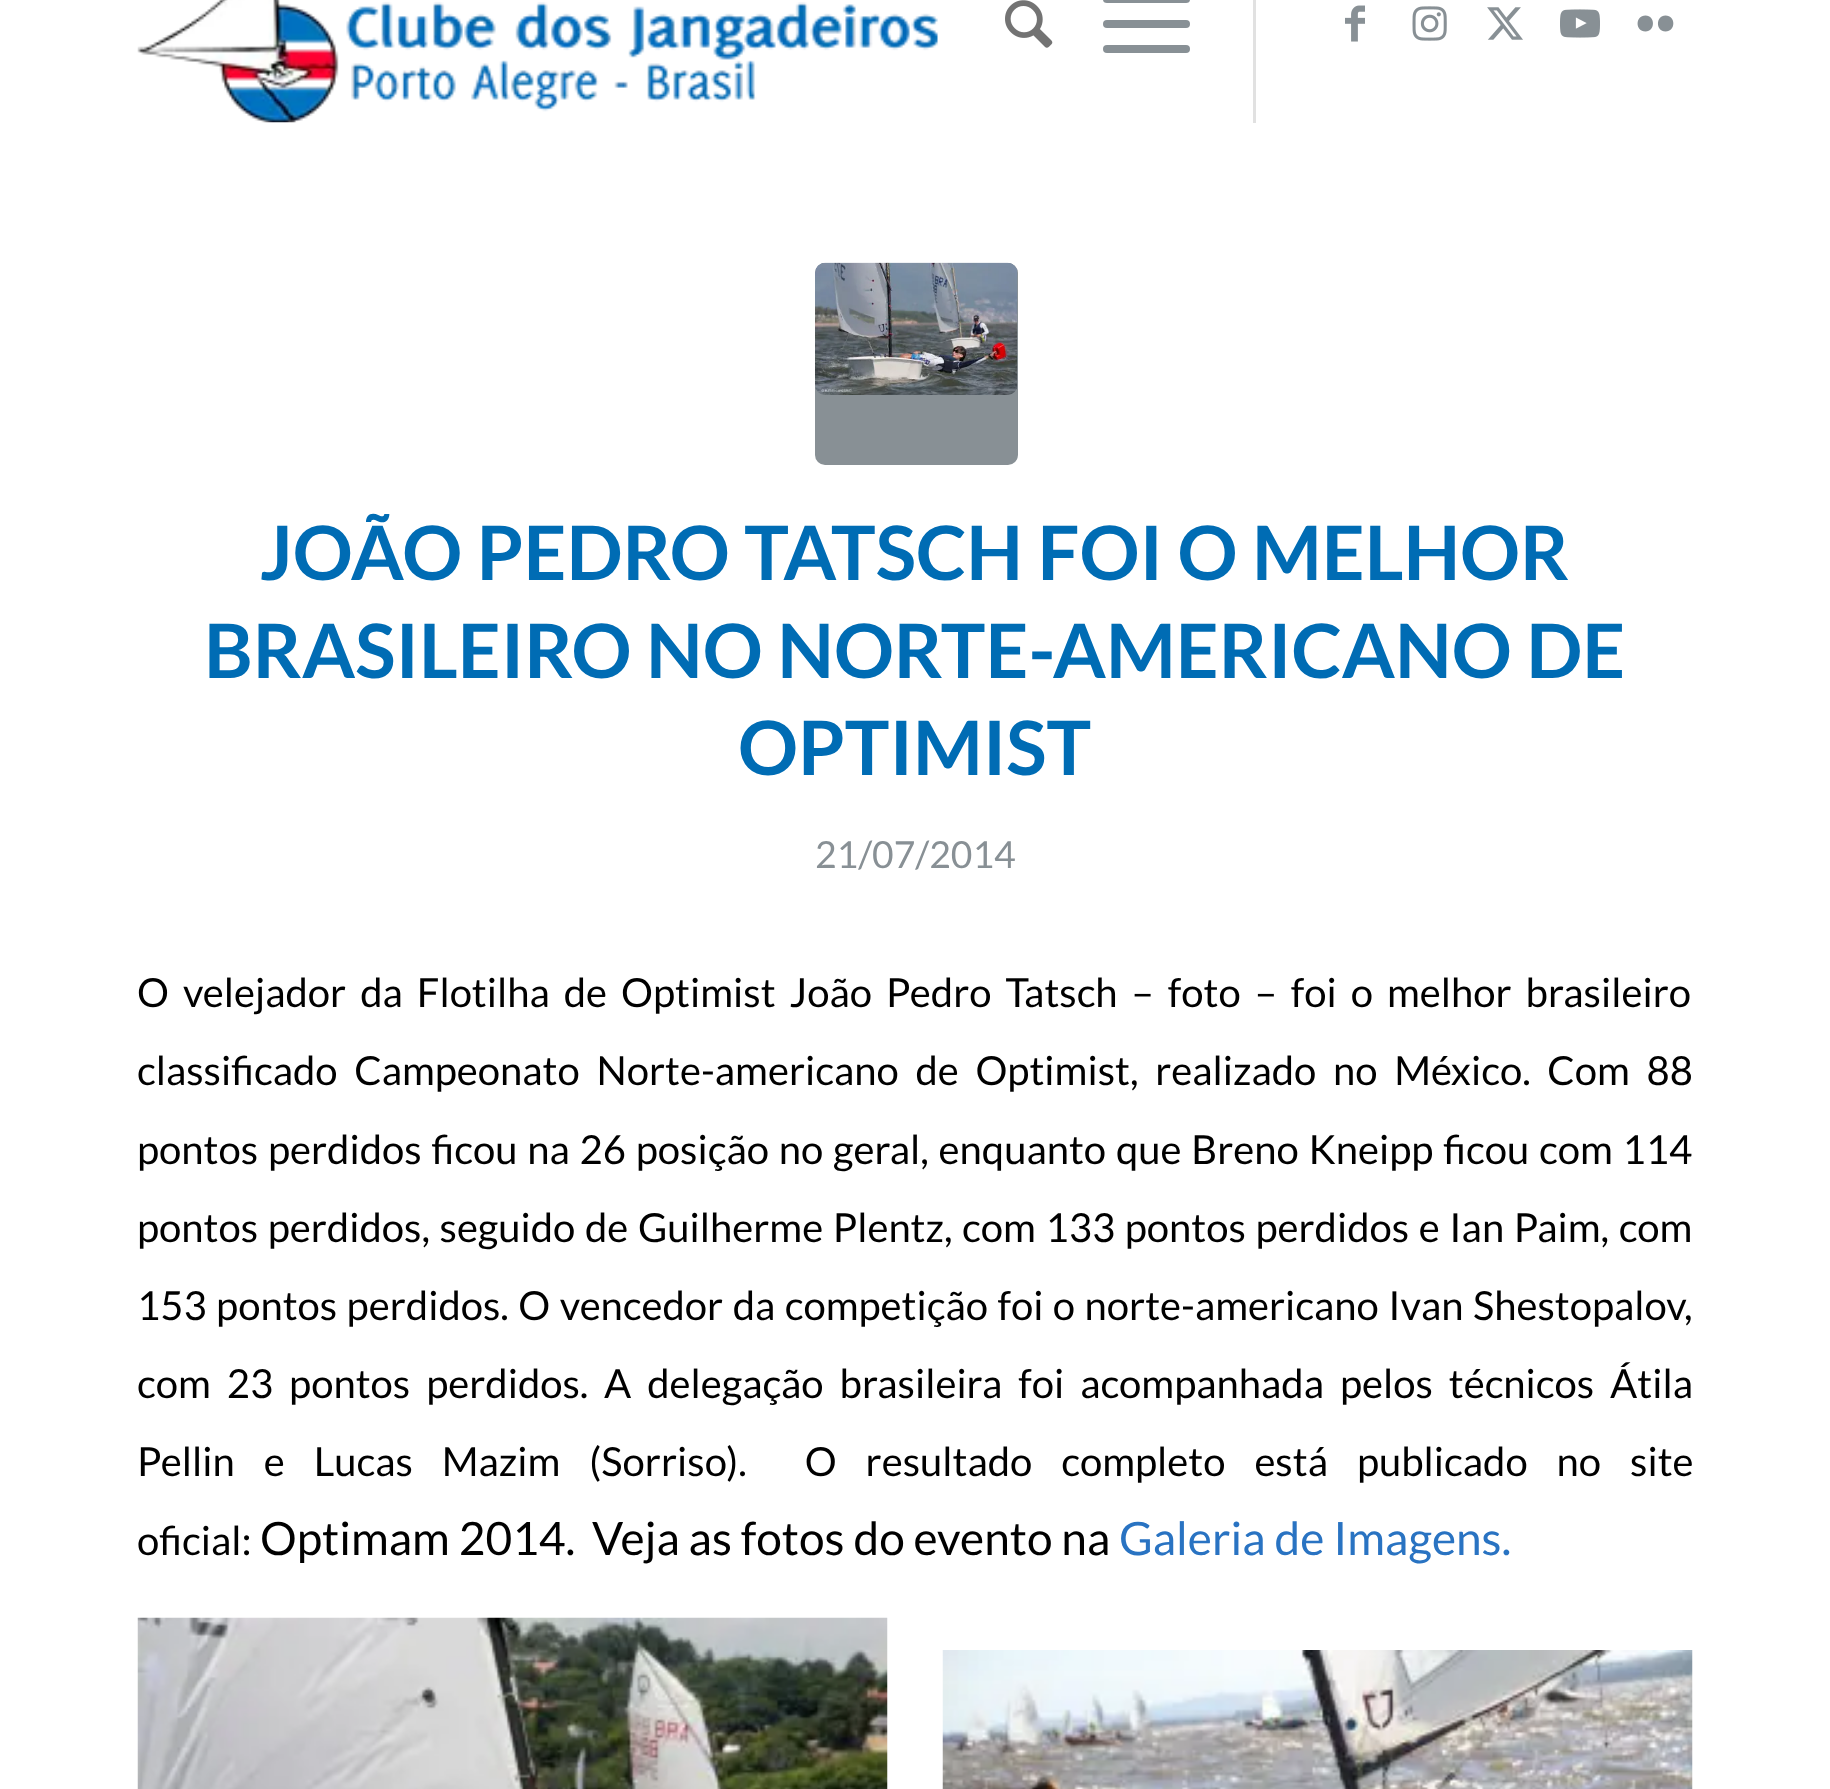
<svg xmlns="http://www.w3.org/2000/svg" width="1830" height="1789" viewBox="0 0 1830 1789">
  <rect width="100%" height="100%" fill="#ffffff"/>
  <image x="137" y="0" width="801" height="123" href="img1.png"/>
  <rect x="1253" y="0" width="3" height="123" fill="#e1e1e1"/>
  <image x="1005" y="0" width="48" height="48" href="img2.png"/>
  <rect x="1103" y="20" width="87" height="8" rx="4" fill="#889095"/>
  <rect x="1103" y="-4" width="87" height="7" rx="4" fill="#889095"/>
  <rect x="1103" y="45" width="87" height="8" rx="4" fill="#889095"/>
  <image x="1345" y="5" width="20" height="37" href="img3.png"/>
  <image x="1412" y="6" width="35" height="35" href="img4.png"/>
  <image x="1487" y="7" width="36" height="33" href="img5.png"/>
  <image x="1560" y="9" width="40" height="29" href="img6.png"/>
  <path d="M1645.5 31.5C1635 31.5 1635 15.5 1645.5 15.5C1655.5 15.5 1655.5 31.5 1645.5 31.5ZM1665.5 31.5C1655.5 31.5 1655.5 15.5 1665.5 15.5C1676 15.5 1676 31.5 1665.5 31.5Z" fill="#889095"/>
  <rect x="815" y="263" width="203" height="202" rx="10" fill="#889095"/>
  <image x="815" y="262" width="203" height="133" href="img7.png"/>
  <text x="260" y="580" font-family="Lato" font-size="75" font-weight="bold" fill="#006cb4">JOÃO PEDRO TATSCH FOI O MELHOR</text>
  <text x="204" y="678" font-family="Lato" font-size="75" font-weight="bold" fill="#006cb4">BRASILEIRO NO NORTE-AMERICANO DE</text>
  <text x="738" y="775" font-family="Lato" font-size="75" font-weight="bold" fill="#006cb4">OPTIMIST</text>
  <text x="815" y="868" font-family="Lato" font-size="37.25" fill="#889095">21/07/2014</text>
  <text x="137" y="1007" word-spacing="6.25" font-family="Lato" font-size="40" fill="#000000">O velejador da Flotilha de Optimist João Pedro Tatsch – foto – foi o melhor brasileiro</text>
  <text x="137" y="1085" word-spacing="9" font-family="Lato" font-size="40" fill="#000000">classificado Campeonato Norte-americano de Optimist, realizado no México. Com 88</text>
  <text x="137" y="1164" word-spacing="2.1" font-family="Lato" font-size="40" fill="#000000">pontos perdidos ficou na 26 posição no geral, enquanto que Breno Kneipp ficou com 114</text>
  <text x="137" y="1242" word-spacing="1.9" font-family="Lato" font-size="40" fill="#000000">pontos perdidos, seguido de Guilherme Plentz, com 133 pontos perdidos e Ian Paim, com</text>
  <text x="137" y="1320" word-spacing="1.75" font-family="Lato" font-size="40" fill="#000000">153 pontos perdidos. O vencedor da competição foi o norte-americano Ivan Shestopalov,</text>
  <text x="137" y="1398" word-spacing="8.25" font-family="Lato" font-size="40" fill="#000000">com 23 pontos perdidos.</text>
  <text x="604" y="1398" word-spacing="8.25" font-family="Lato" font-size="40" fill="#000000">A delegação brasileira foi acompanhada pelos técnicos Átila</text>
  <text x="137" y="1476" word-spacing="21.25" font-family="Lato" font-size="40" fill="#000000" xml:space="preserve">Pellin e Lucas Mazim (Sorriso).  O resultado completo está publicado no site</text>
  <text x="137" y="1555" font-family="Lato" font-size="40" fill="#000000">oficial:</text>
  <text x="260" y="1555" font-family="Lato" font-size="46" fill="#000000">Optimam 2014.</text>
  <text x="592" y="1555" font-family="Lato" font-size="46" fill="#000000">Veja as fotos do evento na</text>
  <text x="1119" y="1555" font-family="Lato" font-size="46" fill="#2973c2">Galeria de Imagens.</text>
  <image x="137" y="1617" width="751" height="172" href="img8.png"/>
  <image x="942" y="1650" width="751" height="139" href="img9.png"/>
</svg>
